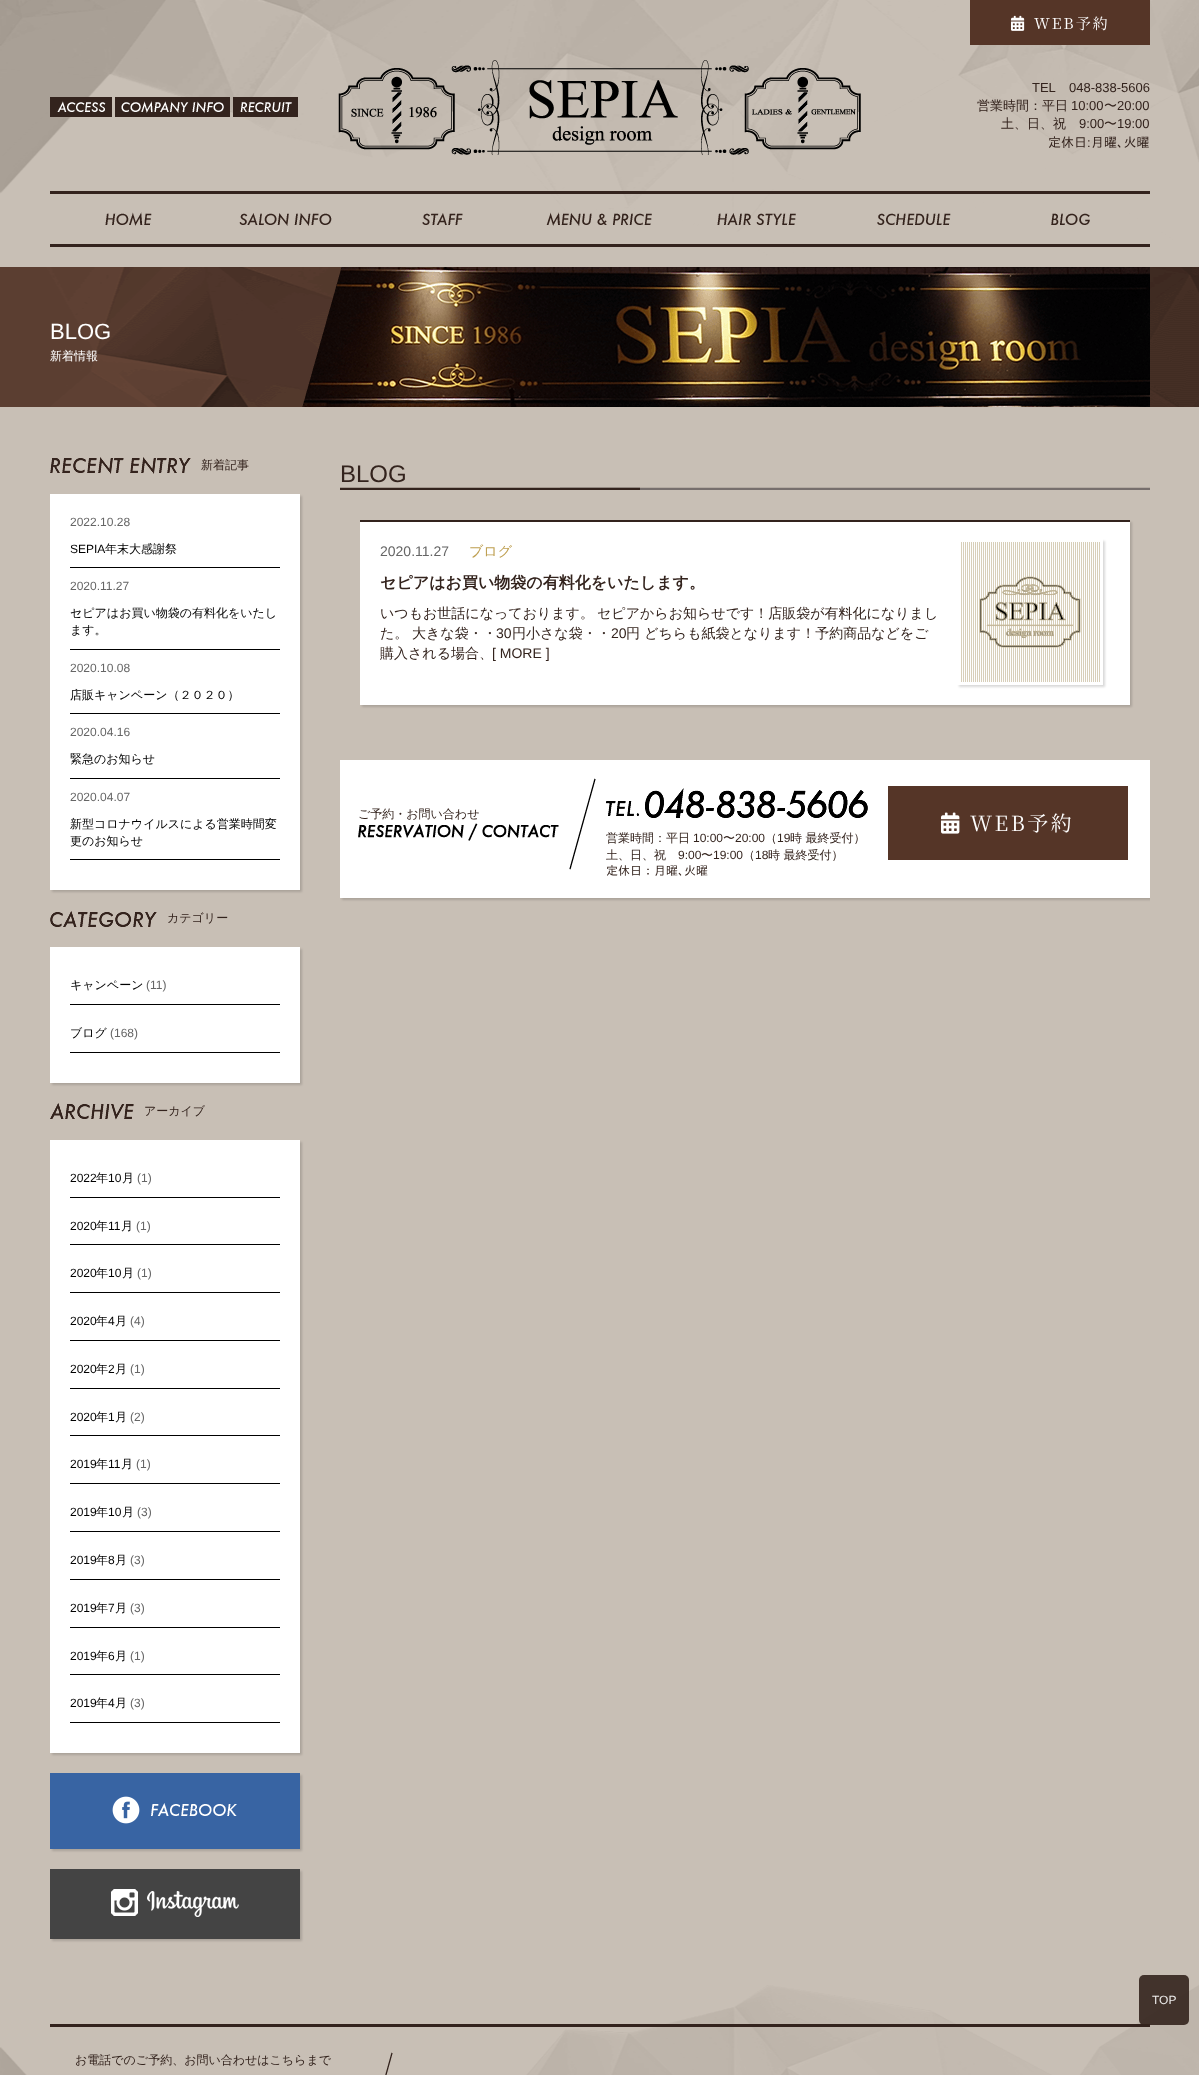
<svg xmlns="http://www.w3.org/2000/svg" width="1199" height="2075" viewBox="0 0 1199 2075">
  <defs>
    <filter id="blur1" x="-50%" y="-200%" width="200%" height="500%"><feGaussianBlur stdDeviation="1"/></filter>
    <clipPath id="clip1"><path d="M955 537H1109V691H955ZM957 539H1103V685H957Z" clip-rule="evenodd"/></clipPath>
    <clipPath id="clip2"><rect x="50" y="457" width="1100" height="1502"/></clipPath>
  </defs>
  <rect width="100%" height="100%" fill="#ffffff"/>
  <image x="0" y="0" width="1199" height="267" href="img1.png"/>
  <rect x="970" y="0" width="180" height="45" fill="#553527"/>
  <image x="1011" y="15" width="14" height="16" href="img2.png"/>
  <text x="1034" y="29" font-family="Noto Serif JP" font-size="15" font-weight="200" letter-spacing="2" fill="#ffffff">WEB予約</text>
  <image x="50" y="97" width="62" height="20" href="img3.png"/>
  <image x="115" y="97" width="115" height="20" href="img4.png"/>
  <image x="233" y="97" width="65" height="20" href="img5.png"/>
  <image x="338" y="60" width="523" height="95" href="img6.png"/>
  <text x="1032" y="92" font-family="Liberation Sans" font-size="13" fill="#33231d">TEL</text>
  <text x="1069" y="92" font-family="Liberation Sans" font-size="13" fill="#33231d">048-838-5606</text>
  <text x="977" y="110" font-family="WenQuanYi Zen Hei" font-size="13" font-weight="500" fill="#33231d">営業時間：平日</text>
  <text x="1071" y="110" font-family="Liberation Sans" font-size="13" fill="#33231d">10:00</text>
  <text x="1104" y="110" font-family="WenQuanYi Zen Hei" font-size="13" font-weight="500" fill="#33231d">〜</text>
  <text x="1117" y="110" font-family="Liberation Sans" font-size="13" fill="#33231d">20:00</text>
  <text x="1001" y="128" font-family="WenQuanYi Zen Hei" font-size="13" font-weight="500" fill="#33231d">土、日、祝</text>
  <text x="1079" y="128" font-family="Liberation Sans" font-size="13" fill="#33231d">9:00</text>
  <text x="1104" y="128" font-family="WenQuanYi Zen Hei" font-size="13" font-weight="500" fill="#33231d">〜</text>
  <text x="1117" y="128" font-family="Liberation Sans" font-size="13" fill="#33231d">19:00</text>
  <text x="1048" y="147" font-family="IPAGothic" font-size="13" fill="#33231d">定休日</text>
  <text x="1087" y="147" font-family="Liberation Sans" font-size="13" fill="#33231d">:</text>
  <text x="1091" y="147" font-family="IPAGothic" font-size="13" fill="#33231d">月曜､火曜</text>
  <rect x="50" y="191" width="1100" height="3" fill="#33231d"/>
  <rect x="50" y="244" width="1100" height="3" fill="#33231d"/>
  <image x="105" y="212" width="47" height="14" href="img7.png"/>
  <image x="239" y="213" width="93" height="13" href="img8.png"/>
  <image x="422" y="213" width="41" height="12" href="img9.png"/>
  <image x="546" y="212" width="106" height="14" href="img10.png"/>
  <image x="717" y="213" width="79" height="12" href="img11.png"/>
  <image x="877" y="213" width="74" height="12" href="img12.png"/>
  <image x="1051" y="213" width="39" height="12" href="img13.png"/>
  <image x="0" y="407" width="1199" height="1668" href="img14.png"/>
  <image x="0" y="267" width="1199" height="140" href="img15.png"/>
  <image x="302" y="267" width="848" height="140" href="img16.png"/>
  <text x="50" y="339" font-family="Liberation Sans" font-size="22" fill="#ffffff">BLOG</text>
  <text x="50" y="360" font-family="WenQuanYi Zen Hei" font-size="12" font-weight="500" fill="#ffffff">新着情報</text>
  <image x="50" y="457" width="141" height="17" href="img17.png"/>
  <text x="201" y="469" font-family="WenQuanYi Zen Hei" font-size="12" font-weight="500" fill="#33231d">新着記事</text>
  <rect x="52" y="496" width="250" height="396" fill="#000000" fill-opacity="0.15" filter="url(#blur1)"/>
  <rect x="50" y="494" width="250" height="396" fill="#ffffff"/>
  <rect x="70" y="567" width="210" height="1" fill="#000000"/>
  <text x="70" y="526" font-family="Liberation Sans" font-size="12" fill="#656565">2022.10.28</text>
  <text x="70" y="553" font-family="Liberation Sans" font-size="12" fill="#000000">SEPIA</text>
  <text x="105" y="553" font-family="WenQuanYi Zen Hei" font-size="12" font-weight="500" fill="#000000">年末大感謝祭</text>
  <rect x="70" y="649" width="210" height="1" fill="#000000"/>
  <text x="70" y="590" font-family="Liberation Sans" font-size="12" fill="#656565">2020.11.27</text>
  <text x="70" y="617" font-family="WenQuanYi Zen Hei" font-size="12" font-weight="500" fill="#000000">セピアはお買い物袋の有料化をいたし</text>
  <text x="70" y="634" font-family="WenQuanYi Zen Hei" font-size="12" font-weight="500" fill="#000000">ます。</text>
  <rect x="70" y="713" width="210" height="1" fill="#000000"/>
  <text x="70" y="672" font-family="Liberation Sans" font-size="12" fill="#656565">2020.10.08</text>
  <text x="70" y="699" font-family="WenQuanYi Zen Hei" font-size="12" font-weight="500" fill="#000000">店販キャンペーン（２０２０）</text>
  <rect x="70" y="778" width="210" height="1" fill="#000000"/>
  <text x="70" y="736" font-family="Liberation Sans" font-size="12" fill="#656565">2020.04.16</text>
  <text x="70" y="763" font-family="WenQuanYi Zen Hei" font-size="12" font-weight="500" fill="#000000">緊急のお知らせ</text>
  <rect x="70" y="859" width="210" height="1" fill="#000000"/>
  <text x="70" y="801" font-family="Liberation Sans" font-size="12" fill="#656565">2020.04.07</text>
  <text x="70" y="828" font-family="WenQuanYi Zen Hei" font-size="12" font-weight="500" fill="#000000">新型コロナウイルスによる営業時間変</text>
  <text x="70" y="845" font-family="WenQuanYi Zen Hei" font-size="12" font-weight="500" fill="#000000">更のお知らせ</text>
  <image x="50" y="911" width="107" height="16" href="img18.png"/>
  <text x="167" y="922" font-family="WenQuanYi Zen Hei" font-size="12" font-weight="500" fill="#33231d">カテゴリー</text>
  <rect x="52" y="949" width="250" height="136" fill="#000000" fill-opacity="0.15" filter="url(#blur1)"/>
  <rect x="50" y="947" width="250" height="136" fill="#ffffff"/>
  <rect x="70" y="1004" width="210" height="1" fill="#000000"/>
  <text x="70" y="989" font-family="WenQuanYi Zen Hei" font-size="12" font-weight="500" fill="#000000">キャンペーン</text>
  <text x="146" y="989" font-family="Liberation Sans" font-size="12" fill="#656565">(11)</text>
  <rect x="70" y="1052" width="210" height="1" fill="#000000"/>
  <text x="70" y="1037" font-family="WenQuanYi Zen Hei" font-size="12" font-weight="500" fill="#000000">ブログ</text>
  <text x="110" y="1037" font-family="Liberation Sans" font-size="12" fill="#656565">(168)</text>
  <image x="50" y="1103" width="84" height="17" href="img19.png"/>
  <text x="144" y="1115" font-family="WenQuanYi Zen Hei" font-size="12" font-weight="500" fill="#33231d">アーカイブ</text>
  <rect x="52" y="1142" width="250" height="613" fill="#000000" fill-opacity="0.15" filter="url(#blur1)"/>
  <rect x="50" y="1140" width="250" height="613" fill="#ffffff"/>
  <rect x="70" y="1197" width="210" height="1" fill="#000000"/>
  <text x="70" y="1182" font-family="Liberation Sans" font-size="12" fill="#000000">2022</text>
  <text x="96" y="1182" font-family="WenQuanYi Zen Hei" font-size="12" font-weight="500" fill="#000000">年</text>
  <text x="108" y="1182" font-family="Liberation Sans" font-size="12" fill="#000000">10</text>
  <text x="122" y="1182" font-family="WenQuanYi Zen Hei" font-size="12" font-weight="500" fill="#000000">月</text>
  <text x="137" y="1182" font-family="Liberation Sans" font-size="12" fill="#656565">(1)</text>
  <rect x="70" y="1244" width="210" height="1" fill="#000000"/>
  <text x="70" y="1230" font-family="Liberation Sans" font-size="12" fill="#000000">2020</text>
  <text x="96" y="1230" font-family="WenQuanYi Zen Hei" font-size="12" font-weight="500" fill="#000000">年</text>
  <text x="108" y="1230" font-family="Liberation Sans" font-size="12" fill="#000000">11</text>
  <text x="121" y="1230" font-family="WenQuanYi Zen Hei" font-size="12" font-weight="500" fill="#000000">月</text>
  <text x="136" y="1230" font-family="Liberation Sans" font-size="12" fill="#656565">(1)</text>
  <rect x="70" y="1292" width="210" height="1" fill="#000000"/>
  <text x="70" y="1277" font-family="Liberation Sans" font-size="12" fill="#000000">2020</text>
  <text x="96" y="1277" font-family="WenQuanYi Zen Hei" font-size="12" font-weight="500" fill="#000000">年</text>
  <text x="108" y="1277" font-family="Liberation Sans" font-size="12" fill="#000000">10</text>
  <text x="122" y="1277" font-family="WenQuanYi Zen Hei" font-size="12" font-weight="500" fill="#000000">月</text>
  <text x="137" y="1277" font-family="Liberation Sans" font-size="12" fill="#656565">(1)</text>
  <rect x="70" y="1340" width="210" height="1" fill="#000000"/>
  <text x="70" y="1325" font-family="Liberation Sans" font-size="12" fill="#000000">2020</text>
  <text x="96" y="1325" font-family="WenQuanYi Zen Hei" font-size="12" font-weight="500" fill="#000000">年</text>
  <text x="108" y="1325" font-family="Liberation Sans" font-size="12" fill="#000000">4</text>
  <text x="115" y="1325" font-family="WenQuanYi Zen Hei" font-size="12" font-weight="500" fill="#000000">月</text>
  <text x="130" y="1325" font-family="Liberation Sans" font-size="12" fill="#656565">(4)</text>
  <rect x="70" y="1388" width="210" height="1" fill="#000000"/>
  <text x="70" y="1373" font-family="Liberation Sans" font-size="12" fill="#000000">2020</text>
  <text x="96" y="1373" font-family="WenQuanYi Zen Hei" font-size="12" font-weight="500" fill="#000000">年</text>
  <text x="108" y="1373" font-family="Liberation Sans" font-size="12" fill="#000000">2</text>
  <text x="115" y="1373" font-family="WenQuanYi Zen Hei" font-size="12" font-weight="500" fill="#000000">月</text>
  <text x="130" y="1373" font-family="Liberation Sans" font-size="12" fill="#656565">(1)</text>
  <rect x="70" y="1435" width="210" height="1" fill="#000000"/>
  <text x="70" y="1421" font-family="Liberation Sans" font-size="12" fill="#000000">2020</text>
  <text x="96" y="1421" font-family="WenQuanYi Zen Hei" font-size="12" font-weight="500" fill="#000000">年</text>
  <text x="108" y="1421" font-family="Liberation Sans" font-size="12" fill="#000000">1</text>
  <text x="115" y="1421" font-family="WenQuanYi Zen Hei" font-size="12" font-weight="500" fill="#000000">月</text>
  <text x="130" y="1421" font-family="Liberation Sans" font-size="12" fill="#656565">(2)</text>
  <rect x="70" y="1483" width="210" height="1" fill="#000000"/>
  <text x="70" y="1468" font-family="Liberation Sans" font-size="12" fill="#000000">2019</text>
  <text x="96" y="1468" font-family="WenQuanYi Zen Hei" font-size="12" font-weight="500" fill="#000000">年</text>
  <text x="108" y="1468" font-family="Liberation Sans" font-size="12" fill="#000000">11</text>
  <text x="121" y="1468" font-family="WenQuanYi Zen Hei" font-size="12" font-weight="500" fill="#000000">月</text>
  <text x="136" y="1468" font-family="Liberation Sans" font-size="12" fill="#656565">(1)</text>
  <rect x="70" y="1531" width="210" height="1" fill="#000000"/>
  <text x="70" y="1516" font-family="Liberation Sans" font-size="12" fill="#000000">2019</text>
  <text x="96" y="1516" font-family="WenQuanYi Zen Hei" font-size="12" font-weight="500" fill="#000000">年</text>
  <text x="108" y="1516" font-family="Liberation Sans" font-size="12" fill="#000000">10</text>
  <text x="122" y="1516" font-family="WenQuanYi Zen Hei" font-size="12" font-weight="500" fill="#000000">月</text>
  <text x="137" y="1516" font-family="Liberation Sans" font-size="12" fill="#656565">(3)</text>
  <rect x="70" y="1579" width="210" height="1" fill="#000000"/>
  <text x="70" y="1564" font-family="Liberation Sans" font-size="12" fill="#000000">2019</text>
  <text x="96" y="1564" font-family="WenQuanYi Zen Hei" font-size="12" font-weight="500" fill="#000000">年</text>
  <text x="108" y="1564" font-family="Liberation Sans" font-size="12" fill="#000000">8</text>
  <text x="115" y="1564" font-family="WenQuanYi Zen Hei" font-size="12" font-weight="500" fill="#000000">月</text>
  <text x="130" y="1564" font-family="Liberation Sans" font-size="12" fill="#656565">(3)</text>
  <rect x="70" y="1627" width="210" height="1" fill="#000000"/>
  <text x="70" y="1612" font-family="Liberation Sans" font-size="12" fill="#000000">2019</text>
  <text x="96" y="1612" font-family="WenQuanYi Zen Hei" font-size="12" font-weight="500" fill="#000000">年</text>
  <text x="108" y="1612" font-family="Liberation Sans" font-size="12" fill="#000000">7</text>
  <text x="115" y="1612" font-family="WenQuanYi Zen Hei" font-size="12" font-weight="500" fill="#000000">月</text>
  <text x="130" y="1612" font-family="Liberation Sans" font-size="12" fill="#656565">(3)</text>
  <rect x="70" y="1674" width="210" height="1" fill="#000000"/>
  <text x="70" y="1660" font-family="Liberation Sans" font-size="12" fill="#000000">2019</text>
  <text x="96" y="1660" font-family="WenQuanYi Zen Hei" font-size="12" font-weight="500" fill="#000000">年</text>
  <text x="108" y="1660" font-family="Liberation Sans" font-size="12" fill="#000000">6</text>
  <text x="115" y="1660" font-family="WenQuanYi Zen Hei" font-size="12" font-weight="500" fill="#000000">月</text>
  <text x="130" y="1660" font-family="Liberation Sans" font-size="12" fill="#656565">(1)</text>
  <rect x="70" y="1722" width="210" height="1" fill="#000000"/>
  <text x="70" y="1707" font-family="Liberation Sans" font-size="12" fill="#000000">2019</text>
  <text x="96" y="1707" font-family="WenQuanYi Zen Hei" font-size="12" font-weight="500" fill="#000000">年</text>
  <text x="108" y="1707" font-family="Liberation Sans" font-size="12" fill="#000000">4</text>
  <text x="115" y="1707" font-family="WenQuanYi Zen Hei" font-size="12" font-weight="500" fill="#000000">月</text>
  <text x="130" y="1707" font-family="Liberation Sans" font-size="12" fill="#656565">(3)</text>
  <rect x="52" y="1775" width="250" height="76" fill="#000000" fill-opacity="0.15" filter="url(#blur1)"/>
  <rect x="50" y="1773" width="250" height="76" fill="#3864a3"/>
  <image x="112" y="1796" width="125" height="28" href="img20.png"/>
  <rect x="52" y="1871" width="250" height="70" fill="#000000" fill-opacity="0.15" filter="url(#blur1)"/>
  <rect x="50" y="1869" width="250" height="70" fill="#444444"/>
  <image x="111" y="1889" width="128" height="28" href="img21.png"/>
  <image x="340" y="487" width="810" height="3" href="img22.png"/>
  <text x="340" y="482" font-family="Liberation Sans" font-size="24" fill="#33231d">BLOG</text>
  <rect x="362" y="522" width="770" height="185" fill="#000000" fill-opacity="0.15" filter="url(#blur1)"/>
  <rect x="360" y="522" width="770" height="183" fill="#ffffff"/>
  <rect x="360" y="520" width="770" height="2" fill="#33231d"/>
  <text x="380" y="556" font-family="Liberation Sans" font-size="14" fill="#656565">2020.11.27</text>
  <text x="469" y="556" font-family="WenQuanYi Zen Hei" font-size="14" font-weight="500" fill="#bfa053">ブログ</text>
  <text x="380" y="588" font-family="WenQuanYi Zen Hei" font-size="16" font-weight="bold" fill="#33231d">セピアはお買い物袋の有料化をいたします。</text>
  <text x="380" y="618" font-family="WenQuanYi Zen Hei" font-size="14" font-weight="500" fill="#33231d">いつもお世話になっております。</text>
  <text x="597" y="618" font-family="WenQuanYi Zen Hei" font-size="14" font-weight="500" fill="#33231d">セピアからお知らせです！店販袋が有料化になりまし</text>
  <text x="380" y="638" font-family="WenQuanYi Zen Hei" font-size="14" font-weight="500" fill="#33231d">た。</text>
  <text x="412" y="638" font-family="WenQuanYi Zen Hei" font-size="14" font-weight="500" fill="#33231d">大きな袋・・</text>
  <text x="496" y="638" font-family="Liberation Sans" font-size="14" fill="#33231d">30</text>
  <text x="512" y="638" font-family="WenQuanYi Zen Hei" font-size="14" font-weight="500" fill="#33231d">円小さな袋・・</text>
  <text x="611" y="638" font-family="Liberation Sans" font-size="14" fill="#33231d">20</text>
  <text x="626" y="638" font-family="WenQuanYi Zen Hei" font-size="14" font-weight="500" fill="#33231d">円 どちらも紙袋となります！予約商品などをご</text>
  <text x="380" y="658" font-family="WenQuanYi Zen Hei" font-size="14" font-weight="500" fill="#33231d">購入される場合、</text>
  <text x="492" y="658" font-family="Liberation Sans" font-size="14" fill="#33231d">[ MORE ]</text>
  <g clip-path="url(#clip1)">
    <rect x="959" y="541" width="146" height="146" fill="#000000" fill-opacity="0.15" filter="url(#blur1)"/>
  </g>
  <image x="961" y="542" width="139" height="140" href="img23.png"/>
  <g clip-path="url(#clip2)">
    <rect x="342" y="762" width="810" height="138" fill="#000000" fill-opacity="0.15" filter="url(#blur1)"/>
  </g>
  <rect x="340" y="760" width="810" height="138" fill="#ffffff"/>
  <text x="358" y="818" font-family="WenQuanYi Zen Hei" font-size="12" font-weight="500" fill="#33231d">ご予約・お問い合わせ</text>
  <image x="358" y="823" width="201" height="18" href="img24.png"/>
  <image x="569" y="778" width="27" height="92" href="img25.png"/>
  <rect x="888" y="786" width="240" height="74" fill="#553527"/>
  <image x="941" y="812" width="19" height="22" href="img26.png"/>
  <text x="970" y="831" font-family="Noto Serif JP" font-size="21" font-weight="200" letter-spacing="2.5" fill="#ffffff">WEB予約</text>
  <image x="606" y="788" width="262" height="30" href="img27.png"/>
  <text x="606" y="842" font-family="WenQuanYi Zen Hei" font-size="12" font-weight="500" fill="#33231d">営業時間：平日</text>
  <text x="693" y="842" font-family="Liberation Sans" font-size="12" fill="#33231d">10:00</text>
  <text x="723" y="842" font-family="WenQuanYi Zen Hei" font-size="12" font-weight="500" fill="#33231d">〜</text>
  <text x="735" y="842" font-family="Liberation Sans" font-size="12" fill="#33231d">20:00</text>
  <text x="765" y="842" font-family="WenQuanYi Zen Hei" font-size="12" font-weight="500" fill="#33231d">（</text>
  <text x="777" y="842" font-family="Liberation Sans" font-size="12" fill="#33231d">19</text>
  <text x="790" y="842" font-family="WenQuanYi Zen Hei" font-size="12" font-weight="500" fill="#33231d">時 最終受付）</text>
  <text x="606" y="859" font-family="WenQuanYi Zen Hei" font-size="12" font-weight="500" fill="#33231d">土、日、祝</text>
  <text x="678" y="859" font-family="Liberation Sans" font-size="12" fill="#33231d">9:00</text>
  <text x="701" y="859" font-family="WenQuanYi Zen Hei" font-size="12" font-weight="500" fill="#33231d">〜</text>
  <text x="713" y="859" font-family="Liberation Sans" font-size="12" fill="#33231d">19:00</text>
  <text x="743" y="859" font-family="WenQuanYi Zen Hei" font-size="12" font-weight="500" fill="#33231d">（</text>
  <text x="755" y="859" font-family="Liberation Sans" font-size="12" fill="#33231d">18</text>
  <text x="768" y="859" font-family="WenQuanYi Zen Hei" font-size="12" font-weight="500" fill="#33231d">時 最終受付）</text>
  <text x="606" y="875" font-family="IPAGothic" font-size="12" fill="#33231d">定休日：月曜､火曜</text>
  <rect x="50" y="2024" width="1100" height="3" fill="#33231d"/>
  <text x="75" y="2064" font-family="WenQuanYi Zen Hei" font-size="12" font-weight="500" fill="#33231d">お電話でのご予約、お問い合わせはこちらまで</text>
  <image x="385" y="2052" width="8" height="23" href="img28.png"/>
  <rect x="1139" y="1975" width="50" height="50" rx="5" fill="#33231d" fill-opacity="0.9"/>
  <text x="1152" y="2004" font-family="Liberation Sans" font-size="12" fill="#ecebea">TOP</text>
</svg>
